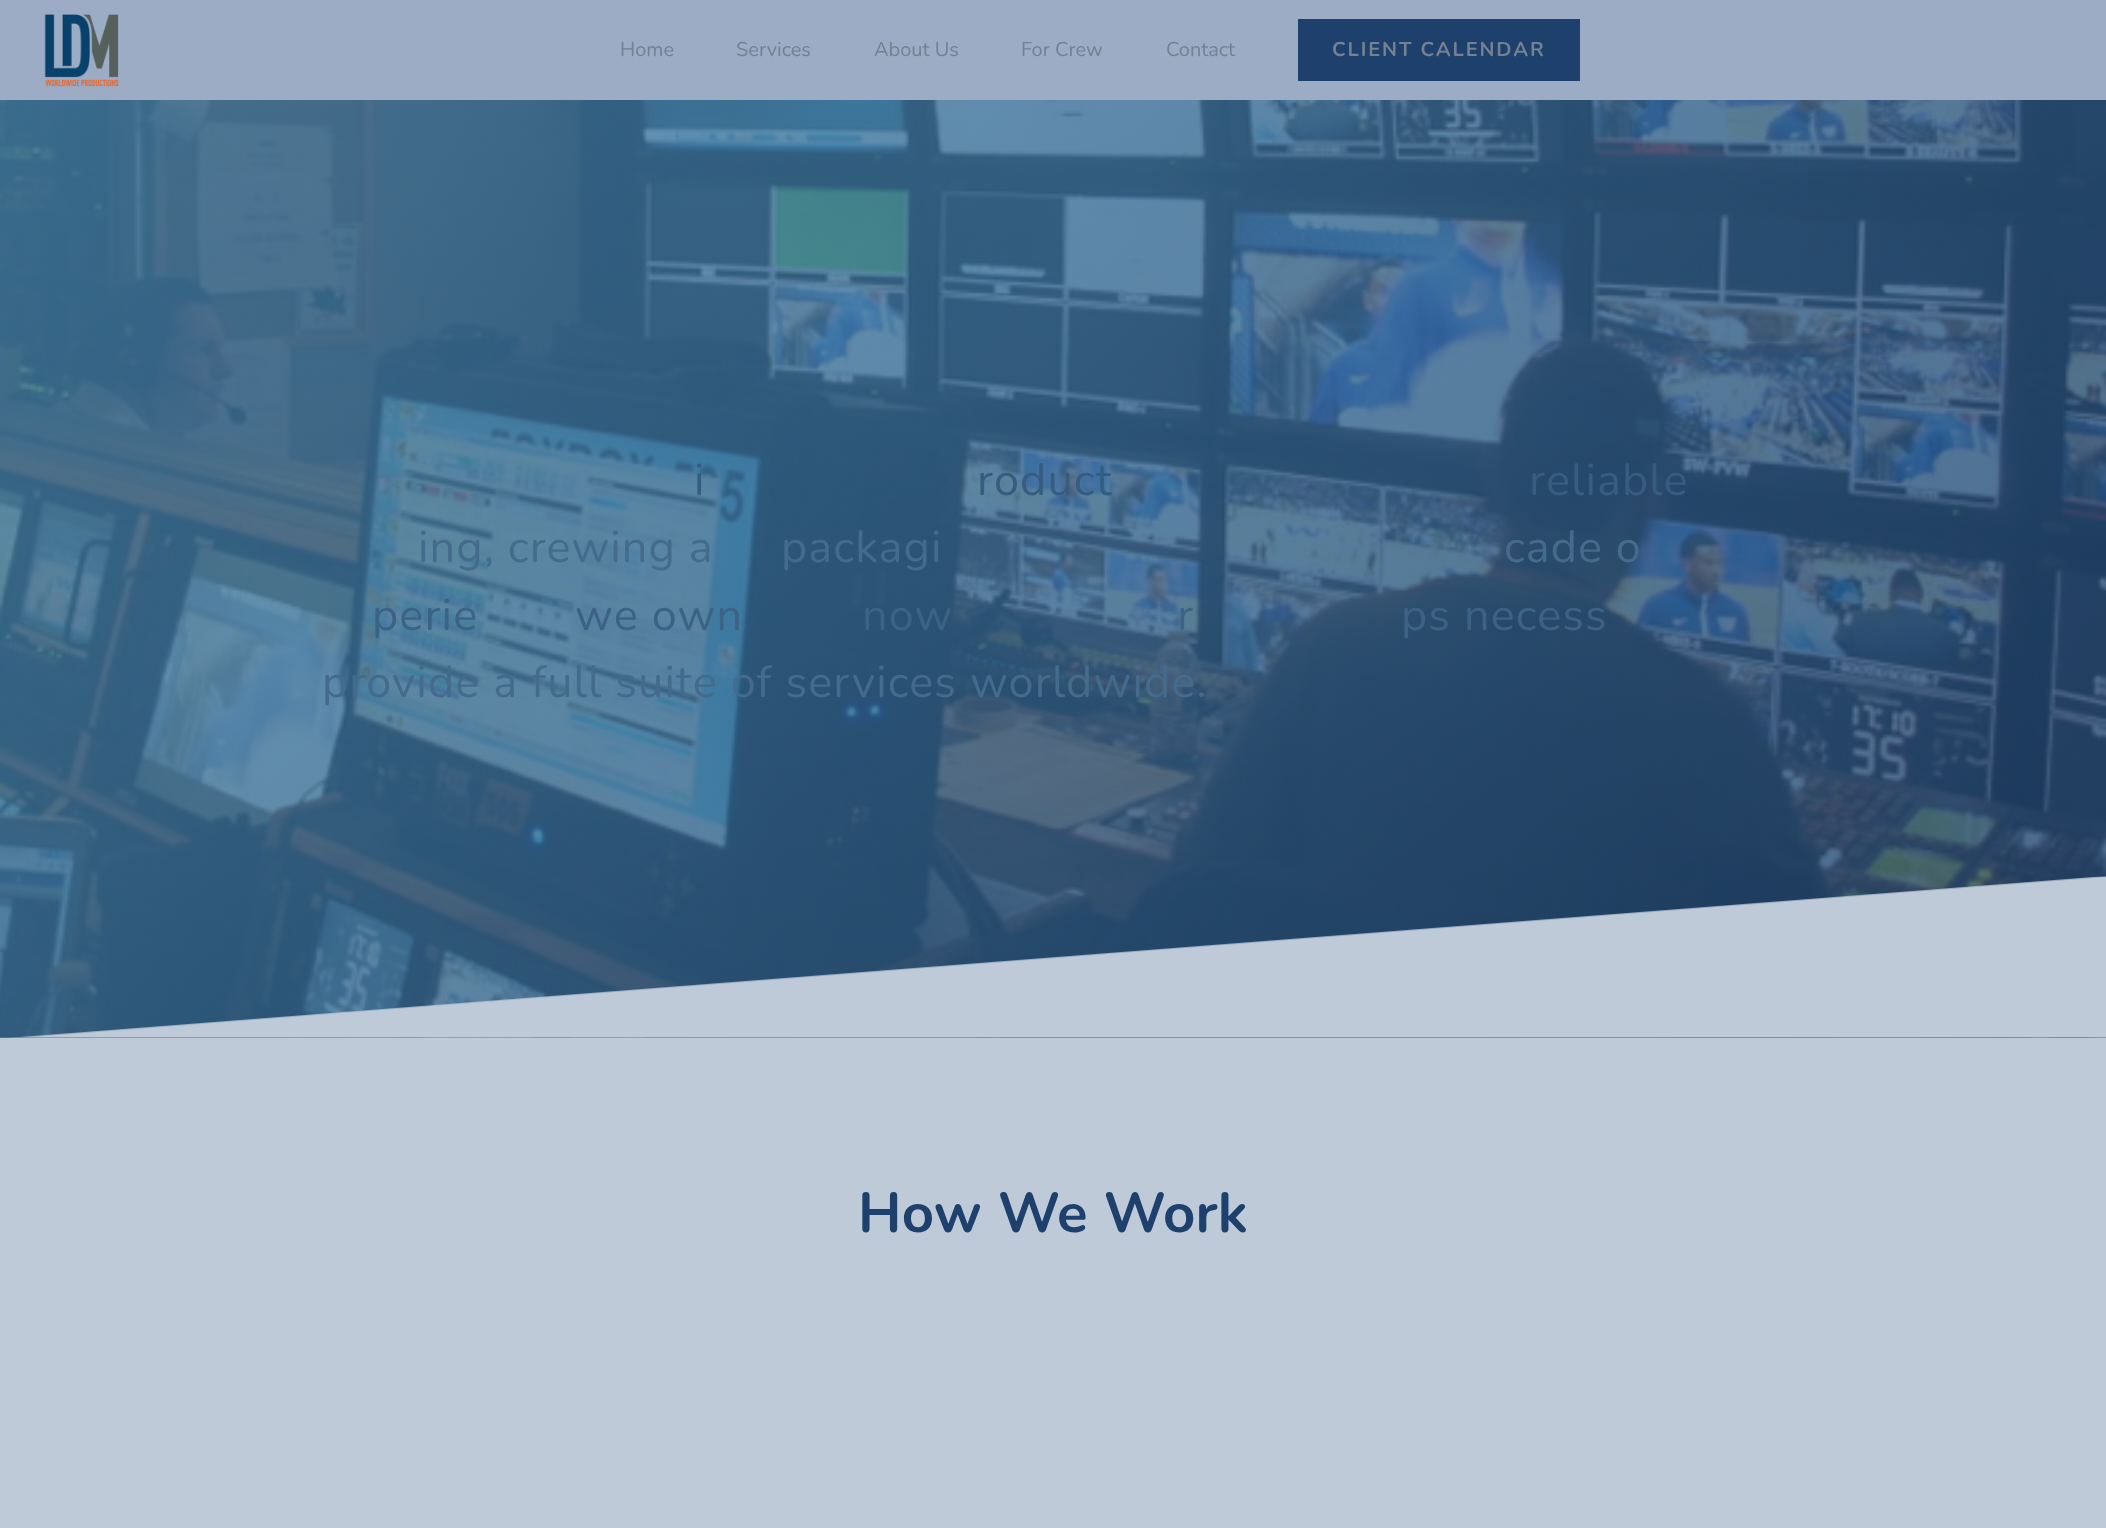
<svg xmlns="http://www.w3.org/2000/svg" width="2106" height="1528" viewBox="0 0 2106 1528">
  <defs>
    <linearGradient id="g1" gradientUnits="userSpaceOnUse" x1="292" y1="-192" x2="1814" y2="1330"><stop offset="0" stop-color="#4585ad" stop-opacity="0.8"/><stop offset="1" stop-color="#1d416c" stop-opacity="0.8"/></linearGradient>
  </defs>
  <rect width="100%" height="100%" fill="#ffffff"/>
  <rect x="0" y="0" width="2106" height="100" fill="#9bacc4"/>
  <image x="44" y="14" width="75" height="73" href="img1.png"/>
  <text x="620" y="56" font-family="Nunito" font-size="20" font-weight="200" fill="#748193">Home</text>
  <text x="736" y="56" font-family="Nunito" font-size="20" font-weight="200" fill="#748193">Services</text>
  <text x="874" y="56" font-family="Nunito" font-size="20" font-weight="200" fill="#748193">About Us</text>
  <text x="1021" y="56" font-family="Nunito" font-size="20" font-weight="200" fill="#748193">For Crew</text>
  <text x="1166" y="56" font-family="Nunito" font-size="20" font-weight="200" fill="#748193">Contact</text>
  <rect x="1298" y="19" width="282" height="62" fill="#1d416c"/>
  <text x="1332" y="56" font-family="'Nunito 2'" font-size="20" font-weight="200" letter-spacing="1.9" fill="#748193">CLIENT CALENDAR</text>
  <image x="0" y="100" width="2106" height="938" href="img2.png"/>
  <rect x="0" y="100" width="2106" height="938" fill="url(#g1)"/>
  <text x="694" y="495" word-spacing="0.25" font-family="Nunito" font-size="45" font-weight="200" letter-spacing="1.1" fill="#365d80">i</text>
  <text x="977" y="495" word-spacing="0.25" font-family="Nunito" font-size="45" font-weight="200" letter-spacing="1.1" fill="#365d80">roduct</text>
  <text x="1529" y="495" word-spacing="0.25" font-family="Nunito" font-size="45" font-weight="200" letter-spacing="1.1" fill="#365d80">reliable</text>
  <text x="418" y="562" font-family="Nunito" font-size="45" font-weight="200" letter-spacing="1.1" fill="#446b8b">ing, crewing a</text>
  <text x="781" y="562" font-family="Nunito" font-size="45" font-weight="200" letter-spacing="1.1" fill="#446b8b">packagi</text>
  <text x="1504" y="562" font-family="Nunito" font-size="45" font-weight="200" letter-spacing="1.1" fill="#446b8b">cade o</text>
  <text x="372" y="630" word-spacing="0.25" font-family="Nunito" font-size="45" font-weight="200" letter-spacing="1.1" fill="#3c6385">perie</text>
  <text x="575" y="630" word-spacing="0.25" font-family="Nunito" font-size="45" font-weight="200" letter-spacing="1.1" fill="#3c6385">we own</text>
  <text x="862" y="630" word-spacing="0.25" font-family="Nunito" font-size="45" font-weight="200" letter-spacing="1.1" fill="#3c6385">now</text>
  <text x="1177" y="630" word-spacing="0.25" font-family="Nunito" font-size="45" font-weight="200" letter-spacing="1.1" fill="#3c6385">r</text>
  <text x="1401" y="630" word-spacing="0.25" font-family="Nunito" font-size="45" font-weight="200" letter-spacing="1.1" fill="#3c6385">ps necess</text>
  <text x="322" y="697" word-spacing="0.25" font-family="Nunito" font-size="45" font-weight="200" letter-spacing="1.1" fill="#446b8b">provide a full suite of services worldwide.</text>
  <image x="8" y="876" width="2098" height="162" href="img3.png"/>
  <rect x="0" y="1038" width="2106" height="490" fill="#bfcad9"/>
  <text x="858" y="1232" word-spacing="0.25" font-family="'Nunito 2'" font-size="56.25" font-weight="200" letter-spacing="0.25" fill="#1d416c">How We Work</text>
</svg>
